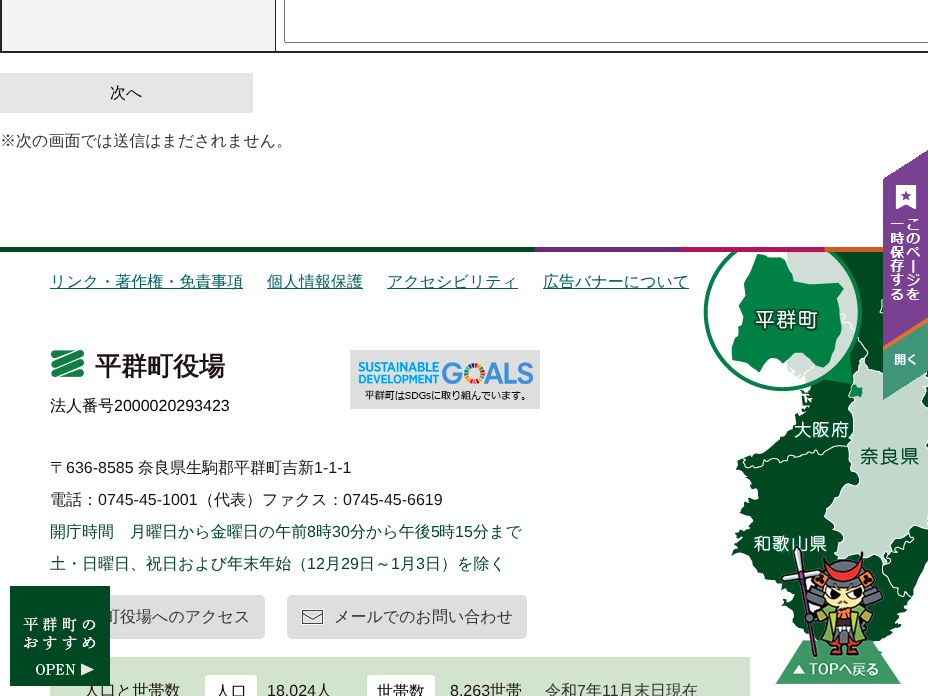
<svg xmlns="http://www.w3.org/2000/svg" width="928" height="696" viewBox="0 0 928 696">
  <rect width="100%" height="100%" fill="#ffffff"/>
  <rect x="275" y="0" width="1" height="52" fill="#262626"/>
  <rect x="0" y="51" width="928" height="2" fill="#262626"/>
  <rect x="0" y="0" width="2" height="53" fill="#262626"/>
  <rect x="2" y="0" width="273" height="51" fill="#f4f4f4"/>
  <rect x="284.5" y="-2.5" width="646" height="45" rx="1.5" fill="none" stroke="#767676"/>
  <rect x="0" y="73" width="253" height="40" fill="#e6e6e6"/>
  <text x="110" y="98" font-family="WenQuanYi Zen Hei" font-size="16" font-weight="500" fill="#000000">次へ</text>
  <text x="0" y="146" font-family="WenQuanYi Zen Hei" font-size="16" font-weight="500" fill="#333333">※次の画面では送信はまだされません。</text>
  <image x="703" y="252" width="225" height="402" href="img1.png"/>
  <image x="0" y="247" width="883" height="5" href="img2.png"/>
  <rect x="50" y="288" width="193" height="1" fill="#006265"/>
  <text x="50" y="287" font-family="WenQuanYi Zen Hei" font-size="16" font-weight="500" fill="#006265">リンク・著作権・免責事項</text>
  <rect x="267" y="288" width="96" height="1" fill="#006265"/>
  <text x="267" y="287" font-family="WenQuanYi Zen Hei" font-size="16" font-weight="500" fill="#006265">個人情報保護</text>
  <rect x="387" y="288" width="131" height="1" fill="#006265"/>
  <text x="387" y="287" font-family="WenQuanYi Zen Hei" font-size="16" font-weight="500" fill="#006265">アクセシビリティ</text>
  <rect x="543" y="288" width="146" height="1" fill="#006265"/>
  <text x="543" y="287" font-family="WenQuanYi Zen Hei" font-size="16" font-weight="500" fill="#006265">広告バナーについて</text>
  <image x="51" y="350" width="33" height="27" href="img3.png"/>
  <text x="95" y="375" font-family="WenQuanYi Zen Hei" font-size="26" font-weight="bold" fill="#1a1311">平群町役場</text>
  <text x="50" y="411" font-family="WenQuanYi Zen Hei" font-size="16" font-weight="500" fill="#000000">法人番号</text>
  <text x="114" y="411" font-family="Liberation Sans" font-size="16" fill="#000000">2000020293423</text>
  <image x="350" y="350" width="190" height="59" href="img4.png"/>
  <text x="50" y="473" font-family="WenQuanYi Zen Hei" font-size="16" font-weight="500" fill="#1a1311">〒</text>
  <text x="66" y="473" font-family="Liberation Sans" font-size="16" fill="#1a1311">636-8585</text>
  <text x="138" y="473" font-family="WenQuanYi Zen Hei" font-size="16" font-weight="500" fill="#1a1311">奈良県生駒郡平群町吉新</text>
  <text x="314" y="473" font-family="Liberation Sans" font-size="16" fill="#1a1311">1-1-1</text>
  <text x="50" y="505" font-family="WenQuanYi Zen Hei" font-size="16" font-weight="500" fill="#1a1311">電話：</text>
  <text x="98" y="505" font-family="Liberation Sans" font-size="16" fill="#1a1311">0745-45-1001</text>
  <text x="198" y="505" font-family="WenQuanYi Zen Hei" font-size="16" font-weight="500" fill="#1a1311">（代表）ファクス：</text>
  <text x="343" y="505" font-family="Liberation Sans" font-size="16" fill="#1a1311">0745-45-6619</text>
  <text x="50" y="537" font-family="WenQuanYi Zen Hei" font-size="16" font-weight="500" fill="#004821">開庁時間　月曜日から金曜日の午前</text>
  <text x="307" y="537" font-family="Liberation Sans" font-size="16" fill="#004821">8</text>
  <text x="316" y="537" font-family="WenQuanYi Zen Hei" font-size="16" font-weight="500" fill="#004821">時</text>
  <text x="332" y="537" font-family="Liberation Sans" font-size="16" fill="#004821">30</text>
  <text x="350" y="537" font-family="WenQuanYi Zen Hei" font-size="16" font-weight="500" fill="#004821">分から午後</text>
  <text x="431" y="537" font-family="Liberation Sans" font-size="16" fill="#004821">5</text>
  <text x="439" y="537" font-family="WenQuanYi Zen Hei" font-size="16" font-weight="500" fill="#004821">時</text>
  <text x="455" y="537" font-family="Liberation Sans" font-size="16" fill="#004821">15</text>
  <text x="473" y="537" font-family="WenQuanYi Zen Hei" font-size="16" font-weight="500" fill="#004821">分まで</text>
  <text x="50" y="569" font-family="WenQuanYi Zen Hei" font-size="16" font-weight="500" fill="#004821">土・日曜日、祝日および年末年始（</text>
  <text x="307" y="569" font-family="Liberation Sans" font-size="16" fill="#004821">12</text>
  <text x="325" y="569" font-family="WenQuanYi Zen Hei" font-size="16" font-weight="500" fill="#004821">月</text>
  <text x="341" y="569" font-family="Liberation Sans" font-size="16" fill="#004821">29</text>
  <text x="359" y="569" font-family="WenQuanYi Zen Hei" font-size="16" font-weight="500" fill="#004821">日～</text>
  <text x="391" y="569" font-family="Liberation Sans" font-size="16" fill="#004821">1</text>
  <text x="400" y="569" font-family="WenQuanYi Zen Hei" font-size="16" font-weight="500" fill="#004821">月</text>
  <text x="416" y="569" font-family="Liberation Sans" font-size="16" fill="#004821">3</text>
  <text x="425" y="569" font-family="WenQuanYi Zen Hei" font-size="16" font-weight="500" fill="#004821">日）を除く</text>
  <rect x="50" y="595" width="215" height="44" rx="5" fill="#dedede"/>
  <text x="104" y="622" font-family="WenQuanYi Zen Hei" font-size="16" font-weight="500" fill="#333333">町役場へのアクセス</text>
  <rect x="287" y="595" width="240" height="44" rx="5" fill="#dedede"/>
  <image x="301" y="609" width="23" height="16" href="img5.png"/>
  <text x="334" y="622" font-family="WenQuanYi Zen Hei" font-size="16" font-weight="500" fill="#333333">メールでのお問い合わせ</text>
  <rect x="50" y="657" width="700" height="39" fill="#d2e4cd"/>
  <text x="84" y="696" font-family="WenQuanYi Zen Hei" font-size="16" font-weight="500" fill="#1a1311">人口と世帯数</text>
  <rect x="205" y="675" width="52" height="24" rx="3" fill="#ffffff"/>
  <text x="215" y="697" font-family="WenQuanYi Zen Hei" font-size="16" font-weight="500" fill="#000000">人口</text>
  <text x="267" y="696" font-family="Liberation Sans" font-size="16" fill="#1a1311">18,024</text>
  <text x="316" y="696" font-family="WenQuanYi Zen Hei" font-size="16" font-weight="500" fill="#1a1311">人</text>
  <rect x="367" y="675" width="68" height="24" rx="3" fill="#ffffff"/>
  <text x="377" y="697" font-family="WenQuanYi Zen Hei" font-size="16" font-weight="500" fill="#000000">世帯数</text>
  <text x="450" y="696" font-family="Liberation Sans" font-size="16" fill="#1a1311">8,263</text>
  <text x="490" y="696" font-family="WenQuanYi Zen Hei" font-size="16" font-weight="500" fill="#1a1311">世帯</text>
  <text x="545" y="696" font-family="WenQuanYi Zen Hei" font-size="16" font-weight="500" fill="#333333">令和</text>
  <text x="577" y="696" font-family="Liberation Sans" font-size="16" fill="#333333">7</text>
  <text x="586" y="696" font-family="WenQuanYi Zen Hei" font-size="16" font-weight="500" fill="#333333">年</text>
  <text x="602" y="696" font-family="Liberation Sans" font-size="16" fill="#333333">11</text>
  <text x="618" y="696" font-family="WenQuanYi Zen Hei" font-size="16" font-weight="500" fill="#333333">月末日現在</text>
  <image x="774" y="544" width="128" height="140" href="img6.png"/>
  <rect x="10" y="586" width="100" height="100" fill="#004821"/>
  <image x="23" y="617" width="73" height="59" href="img7.png"/>
  <image x="883" y="150" width="45" height="250" href="img8.png"/>
</svg>
